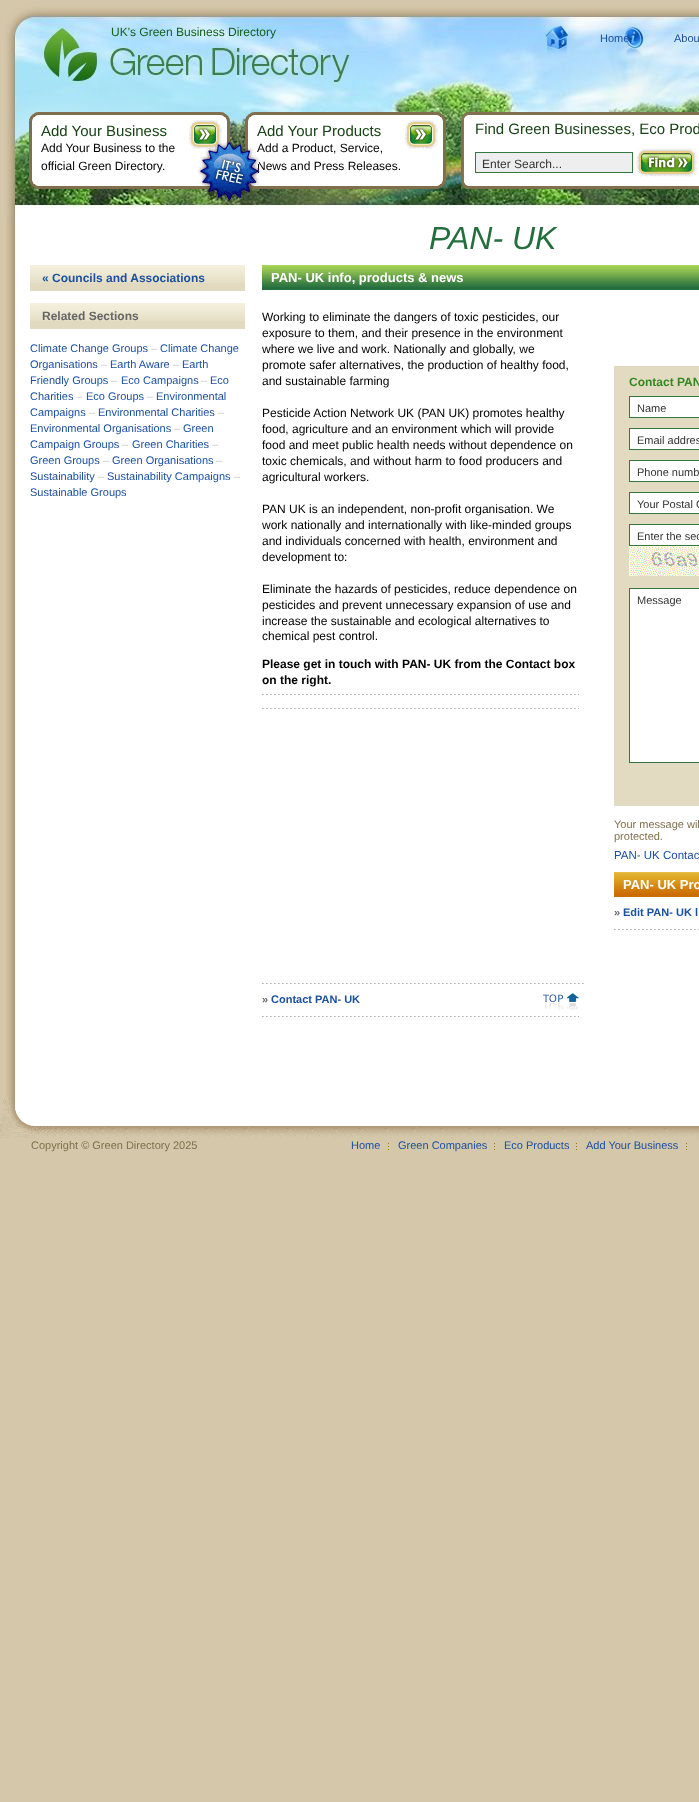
<svg xmlns="http://www.w3.org/2000/svg" width="699" height="1802" viewBox="0 0 699 1802">
  <rect width="100%" height="100%" fill="#d4c7aa"/>
  <image x="6" y="217" width="693" height="880" href="img1.png"/>
  <image x="0" y="1097" width="699" height="41" href="img2.png"/>
  <image x="0" y="0" width="699" height="217" href="img3.png"/>
  <text x="111" y="36" font-family="Liberation Sans" font-size="12" fill="#126120">UK's Green Business Directory</text>
  <text x="600" y="42" font-family="Liberation Sans" font-size="11" fill="#1c50a0">Home</text>
  <text x="674" y="42" font-family="Liberation Sans" font-size="11" fill="#1c50a0">Abou</text>
  <image x="29" y="112" width="201" height="77" href="img4.png"/>
  <text x="41" y="136" font-family="Liberation Sans" font-size="15" fill="#194217">Add Your Business</text>
  <image x="189" y="120" width="33" height="29" href="img5.png"/>
  <text x="41" y="152" font-family="Liberation Sans" font-size="12" fill="#010101">Add Your Business to the</text>
  <text x="41" y="170" font-family="Liberation Sans" font-size="12" fill="#010101">official Green Directory.</text>
  <image x="245" y="112" width="201" height="77" href="img6.png"/>
  <text x="257" y="136" font-family="Liberation Sans" font-size="15" fill="#194217">Add Your Products</text>
  <image x="405" y="120" width="33" height="29" href="img5.png"/>
  <text x="257" y="152" font-family="Liberation Sans" font-size="12" fill="#010101">Add a Product, Service,</text>
  <text x="257" y="170" font-family="Liberation Sans" font-size="12" fill="#010101">News and Press Releases.</text>
  <image x="197" y="140" width="63" height="62" href="img7.png"/>
  <image x="461" y="112" width="238" height="77" href="img8.png"/>
  <text x="475" y="134" font-family="Liberation Sans" font-size="15" fill="#194217">Find Green Businesses, Eco Prod</text>
  <rect x="475.5" y="152.5" width="157" height="20" fill="#eeeeee" stroke="#327941"/>
  <text x="482" y="168" font-family="Liberation Sans" font-size="12" fill="#333333">Enter Search...</text>
  <image x="636" y="148" width="61" height="29" href="img9.png"/>
  <text x="429" y="249" font-family="Liberation Sans" font-size="32" font-style="italic" fill="#256f3f">PAN- UK</text>
  <rect x="30" y="283" width="215" height="8" fill="#e1dac1"/>
  <image x="30" y="265" width="215" height="18" href="img10.png"/>
  <text x="42" y="282" font-family="Liberation Sans" font-size="12" font-weight="bold" fill="#1c50a0">« Councils and Associations</text>
  <rect x="30" y="321" width="215" height="8" fill="#e1dac1"/>
  <image x="30" y="303" width="215" height="18" href="img10.png"/>
  <text x="42" y="320" font-family="Liberation Sans" font-size="12" font-weight="bold" fill="#666666">Related Sections</text>
  <text x="30" y="352" font-family="Liberation Sans" font-size="11" fill="#1c50a0">Climate Change Groups</text>
  <text x="151" y="352" font-family="Liberation Sans" font-size="11" fill="#cacaca">–</text>
  <text x="160" y="352" font-family="Liberation Sans" font-size="11" fill="#1c50a0">Climate Change</text>
  <text x="30" y="368" font-family="Liberation Sans" font-size="11" fill="#1c50a0">Organisations</text>
  <text x="101" y="368" font-family="Liberation Sans" font-size="11" fill="#cacaca">–</text>
  <text x="110" y="368" font-family="Liberation Sans" font-size="11" fill="#1c50a0">Earth Aware</text>
  <text x="173" y="368" font-family="Liberation Sans" font-size="11" fill="#cacaca">–</text>
  <text x="182" y="368" font-family="Liberation Sans" font-size="11" fill="#1c50a0">Earth</text>
  <text x="30" y="384" font-family="Liberation Sans" font-size="11" fill="#1c50a0">Friendly Groups</text>
  <text x="111" y="384" font-family="Liberation Sans" font-size="11" fill="#cacaca">–</text>
  <text x="121" y="384" font-family="Liberation Sans" font-size="11" fill="#1c50a0">Eco Campaigns</text>
  <text x="201" y="384" font-family="Liberation Sans" font-size="11" fill="#cacaca">–</text>
  <text x="210" y="384" font-family="Liberation Sans" font-size="11" fill="#1c50a0">Eco</text>
  <text x="30" y="400" font-family="Liberation Sans" font-size="11" fill="#1c50a0">Charities</text>
  <text x="76" y="400" font-family="Liberation Sans" font-size="11" fill="#cacaca">–</text>
  <text x="86" y="400" font-family="Liberation Sans" font-size="11" fill="#1c50a0">Eco Groups</text>
  <text x="147" y="400" font-family="Liberation Sans" font-size="11" fill="#cacaca">–</text>
  <text x="156" y="400" font-family="Liberation Sans" font-size="11" fill="#1c50a0">Environmental</text>
  <text x="30" y="416" font-family="Liberation Sans" font-size="11" fill="#1c50a0">Campaigns</text>
  <text x="89" y="416" font-family="Liberation Sans" font-size="11" fill="#cacaca">–</text>
  <text x="98" y="416" font-family="Liberation Sans" font-size="11" fill="#1c50a0">Environmental Charities</text>
  <text x="218" y="416" font-family="Liberation Sans" font-size="11" fill="#cacaca">–</text>
  <text x="30" y="432" font-family="Liberation Sans" font-size="11" fill="#1c50a0">Environmental Organisations</text>
  <text x="174" y="432" font-family="Liberation Sans" font-size="11" fill="#cacaca">–</text>
  <text x="183" y="432" font-family="Liberation Sans" font-size="11" fill="#1c50a0">Green</text>
  <text x="30" y="448" font-family="Liberation Sans" font-size="11" fill="#1c50a0">Campaign Groups</text>
  <text x="122" y="448" font-family="Liberation Sans" font-size="11" fill="#cacaca">–</text>
  <text x="132" y="448" font-family="Liberation Sans" font-size="11" fill="#1c50a0">Green Charities</text>
  <text x="212" y="448" font-family="Liberation Sans" font-size="11" fill="#cacaca">–</text>
  <text x="30" y="464" font-family="Liberation Sans" font-size="11" fill="#1c50a0">Green Groups</text>
  <text x="103" y="464" font-family="Liberation Sans" font-size="11" fill="#cacaca">–</text>
  <text x="112" y="464" font-family="Liberation Sans" font-size="11" fill="#1c50a0">Green Organisations</text>
  <text x="216" y="464" font-family="Liberation Sans" font-size="11" fill="#cacaca">–</text>
  <text x="30" y="480" font-family="Liberation Sans" font-size="11" fill="#1c50a0">Sustainability</text>
  <text x="98" y="480" font-family="Liberation Sans" font-size="11" fill="#cacaca">–</text>
  <text x="107" y="480" font-family="Liberation Sans" font-size="11" fill="#1c50a0">Sustainability Campaigns</text>
  <text x="234" y="480" font-family="Liberation Sans" font-size="11" fill="#cacaca">–</text>
  <text x="30" y="496" font-family="Liberation Sans" font-size="11" fill="#1c50a0">Sustainable Groups</text>
  <rect x="262" y="287" width="437" height="3" fill="#256f3f"/>
  <image x="262" y="265" width="437" height="22" href="img11.png"/>
  <text x="271" y="282" font-family="Liberation Sans" font-size="13" font-weight="bold" fill="#ffffff">PAN- UK info, products &amp; news</text>
  <image x="262" y="694" width="317" height="1" href="img12.png"/>
  <text x="262" y="321" font-family="Liberation Sans" font-size="12" fill="#010101">Working to eliminate the dangers of toxic pesticides, our</text>
  <text x="262" y="337" font-family="Liberation Sans" font-size="12" fill="#010101">exposure to them, and their presence in the environment</text>
  <text x="262" y="353" font-family="Liberation Sans" font-size="12" fill="#010101">where we live and work. Nationally and globally, we</text>
  <text x="262" y="369" font-family="Liberation Sans" font-size="12" fill="#010101">promote safer alternatives, the production of healthy food,</text>
  <text x="262" y="385" font-family="Liberation Sans" font-size="12" fill="#010101">and sustainable farming</text>
  <text x="262" y="417" font-family="Liberation Sans" font-size="12" fill="#010101">Pesticide Action Network UK (PAN UK) promotes healthy</text>
  <text x="262" y="433" font-family="Liberation Sans" font-size="12" fill="#010101">food, agriculture and an environment which will provide</text>
  <text x="262" y="449" font-family="Liberation Sans" font-size="12" fill="#010101">food and meet public health needs without dependence on</text>
  <text x="262" y="465" font-family="Liberation Sans" font-size="12" fill="#010101">toxic chemicals, and without harm to food producers and</text>
  <text x="262" y="481" font-family="Liberation Sans" font-size="12" fill="#010101">agricultural workers.</text>
  <text x="262" y="513" font-family="Liberation Sans" font-size="12" fill="#010101">PAN UK is an independent, non-profit organisation. We</text>
  <text x="262" y="529" font-family="Liberation Sans" font-size="12" fill="#010101">work nationally and internationally with like-minded groups</text>
  <text x="262" y="545" font-family="Liberation Sans" font-size="12" fill="#010101">and individuals concerned with health, environment and</text>
  <text x="262" y="561" font-family="Liberation Sans" font-size="12" fill="#010101">development to:</text>
  <text x="262" y="593" font-family="Liberation Sans" font-size="12" fill="#010101">Eliminate the hazards of pesticides, reduce dependence on</text>
  <text x="262" y="609" font-family="Liberation Sans" font-size="12" fill="#010101">pesticides and prevent unnecessary expansion of use and</text>
  <text x="262" y="625" font-family="Liberation Sans" font-size="12" fill="#010101">increase the sustainable and ecological alternatives to</text>
  <text x="262" y="640" font-family="Liberation Sans" font-size="12" fill="#010101">chemical pest control.</text>
  <text x="262" y="668" font-family="Liberation Sans" font-size="12" font-weight="bold" fill="#010101">Please get in touch with PAN- UK from the Contact box</text>
  <text x="262" y="684" font-family="Liberation Sans" font-size="12" font-weight="bold" fill="#010101">on the right.</text>
  <image x="262" y="708" width="317" height="1" href="img12.png"/>
  <image x="262" y="983" width="322" height="1" href="img13.png"/>
  <image x="262" y="1016" width="317" height="1" href="img12.png"/>
  <text x="262" y="1003" font-family="Liberation Sans" font-size="11" font-weight="bold" fill="#666666">»</text>
  <text x="271" y="1003" font-family="Liberation Sans" font-size="11" font-weight="bold" fill="#1c50a0">Contact PAN- UK</text>
  <image x="543" y="993" width="36" height="18" href="img14.png"/>
  <rect x="614" y="366" width="85" height="440" fill="#e2dbc1"/>
  <text x="629" y="386" font-family="Liberation Sans" font-size="12" font-weight="bold" fill="#358921">Contact PAN</text>
  <rect x="629.5" y="396.5" width="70" height="21" fill="#ffffff" stroke="#327941"/>
  <text x="637" y="412" font-family="Liberation Sans" font-size="11" fill="#333333">Name</text>
  <rect x="629.5" y="428.5" width="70" height="21" fill="#ffffff" stroke="#327941"/>
  <text x="637" y="444" font-family="Liberation Sans" font-size="11" fill="#333333">Email addres</text>
  <rect x="629.5" y="460.5" width="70" height="21" fill="#ffffff" stroke="#327941"/>
  <text x="637" y="476" font-family="Liberation Sans" font-size="11" fill="#333333">Phone numb</text>
  <rect x="629.5" y="492.5" width="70" height="21" fill="#ffffff" stroke="#327941"/>
  <text x="637" y="508" font-family="Liberation Sans" font-size="11" fill="#333333">Your Postal C</text>
  <rect x="629.5" y="524.5" width="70" height="21" fill="#ffffff" stroke="#327941"/>
  <text x="637" y="540" font-family="Liberation Sans" font-size="11" fill="#333333">Enter the sec</text>
  <image x="629" y="546" width="70" height="30" href="img15.png"/>
  <rect x="629.5" y="588.5" width="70" height="174" fill="#ffffff" stroke="#327941"/>
  <text x="637" y="604" font-family="Liberation Sans" font-size="11" fill="#333333">Message</text>
  <text x="614" y="828" font-family="Liberation Sans" font-size="11" fill="#80704d">Your message wil</text>
  <text x="614" y="840" font-family="Liberation Sans" font-size="11" fill="#80704d">protected.</text>
  <text x="614" y="859" font-family="Liberation Sans" font-size="11.5" fill="#1c50a0">PAN- UK Contac</text>
  <rect x="614" y="894" width="85" height="3" fill="#cb6c05"/>
  <image x="614" y="872" width="85" height="22" href="img16.png"/>
  <text x="623" y="889" font-family="Liberation Sans" font-size="13" font-weight="bold" fill="#ffffff">PAN- UK Pro</text>
  <image x="614" y="929" width="85" height="1" href="img17.png"/>
  <text x="614" y="916" font-family="Liberation Sans" font-size="11" font-weight="bold" fill="#666666">»</text>
  <text x="623" y="916" font-family="Liberation Sans" font-size="11" font-weight="bold" fill="#1c50a0">Edit PAN- UK l</text>
  <text x="31" y="1149" font-family="Liberation Sans" font-size="11" fill="#80704d">Copyright © Green Directory 2025</text>
  <text x="351" y="1149" font-family="Liberation Sans" font-size="11" fill="#1c50a0">Home</text>
  <image x="388" y="1143" width="1" height="7" href="img18.png"/>
  <text x="398" y="1149" font-family="Liberation Sans" font-size="11" fill="#1c50a0">Green Companies</text>
  <image x="494" y="1143" width="1" height="7" href="img18.png"/>
  <text x="504" y="1149" font-family="Liberation Sans" font-size="11" fill="#1c50a0">Eco Products</text>
  <image x="576" y="1143" width="1" height="7" href="img18.png"/>
  <text x="586" y="1149" font-family="Liberation Sans" font-size="11" fill="#1c50a0">Add Your Business</text>
  <image x="686" y="1143" width="1" height="7" href="img18.png"/>
</svg>
